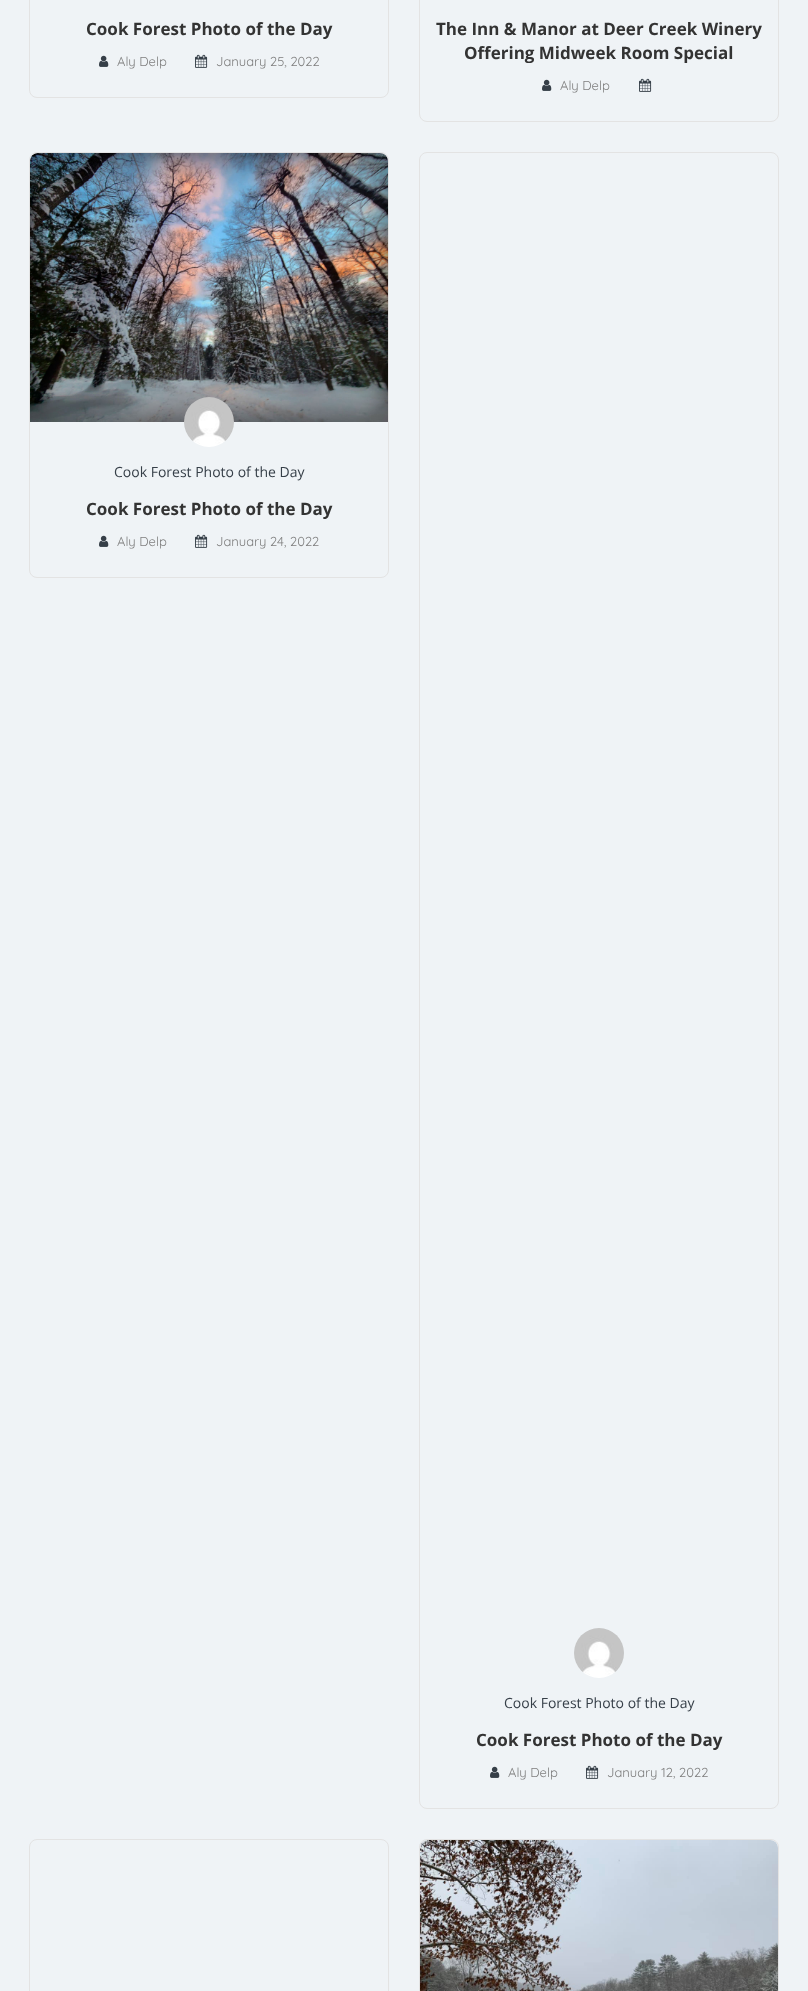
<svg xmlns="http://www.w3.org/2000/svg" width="808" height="1991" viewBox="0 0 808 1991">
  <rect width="100%" height="100%" fill="#eff3f6"/>
  <rect x="29.5" y="-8.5" width="359" height="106" rx="7.5" fill="none" stroke="#e3e3e3"/>
  <text x="86" y="35" font-family="Open Sans" font-size="17" font-weight="bold" fill="#333333">Cook Forest Photo of the Day</text>
  <image x="99" y="55" width="10" height="12" href="img1.png"/>
  <text x="117" y="66" font-family="Quicksand" font-size="13" fill="#7f7f7f">Aly Delp</text>
  <image x="195" y="54" width="13" height="14" href="img2.png"/>
  <text x="216" y="66" font-family="Quicksand" font-size="13" fill="#7f7f7f">January 25, 2022</text>
  <rect x="419.5" y="-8.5" width="359" height="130" rx="7.5" fill="none" stroke="#e3e3e3"/>
  <text x="436" y="35" font-family="Open Sans" font-size="17" font-weight="bold" fill="#333333">The Inn &amp; Manor at Deer Creek Winery</text>
  <text x="464" y="59" font-family="Open Sans" font-size="17" font-weight="bold" fill="#333333">Offering Midweek Room Special</text>
  <image x="542" y="79" width="10" height="12" href="img1.png"/>
  <text x="560" y="90" font-family="Quicksand" font-size="13" fill="#7f7f7f">Aly Delp</text>
  <image x="639" y="78" width="13" height="14" href="img2.png"/>
  <rect x="29.5" y="152.5" width="359" height="425" rx="7.5" fill="none" stroke="#e3e3e3"/>
  <image x="30" y="153" width="358" height="269" href="img3.png"/>
  <image x="184" y="397" width="50" height="50" href="img4.png"/>
  <text x="114" y="477" font-family="Open Sans" font-size="14" fill="#363f48">Cook Forest Photo of the Day</text>
  <text x="86" y="515" font-family="Open Sans" font-size="17" font-weight="bold" fill="#333333">Cook Forest Photo of the Day</text>
  <image x="99" y="535" width="10" height="12" href="img1.png"/>
  <text x="117" y="546" font-family="Quicksand" font-size="13" fill="#7f7f7f">Aly Delp</text>
  <image x="195" y="534" width="13" height="14" href="img2.png"/>
  <text x="216" y="546" font-family="Quicksand" font-size="13" fill="#7f7f7f">January 24, 2022</text>
  <rect x="419.5" y="152.5" width="359" height="1656" rx="7.5" fill="none" stroke="#e3e3e3"/>
  <image x="574" y="1628" width="50" height="50" href="img5.png"/>
  <text x="504" y="1708" font-family="Open Sans" font-size="14" fill="#363f48">Cook Forest Photo of the Day</text>
  <text x="476" y="1746" font-family="Open Sans" font-size="17" font-weight="bold" fill="#333333">Cook Forest Photo of the Day</text>
  <image x="490" y="1766" width="10" height="12" href="img1.png"/>
  <text x="508" y="1777" font-family="Quicksand" font-size="13" fill="#7f7f7f">Aly Delp</text>
  <image x="586" y="1765" width="13" height="14" href="img2.png"/>
  <text x="607" y="1777" font-family="Quicksand" font-size="13" fill="#7f7f7f">January 12, 2022</text>
  <rect x="29.5" y="1839.5" width="359" height="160" rx="7.5" fill="none" stroke="#e3e3e3"/>
  <rect x="419.5" y="1839.5" width="359" height="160" rx="7.5" fill="none" stroke="#e3e3e3"/>
  <image x="420" y="1840" width="358" height="151" href="img6.png"/>
</svg>
